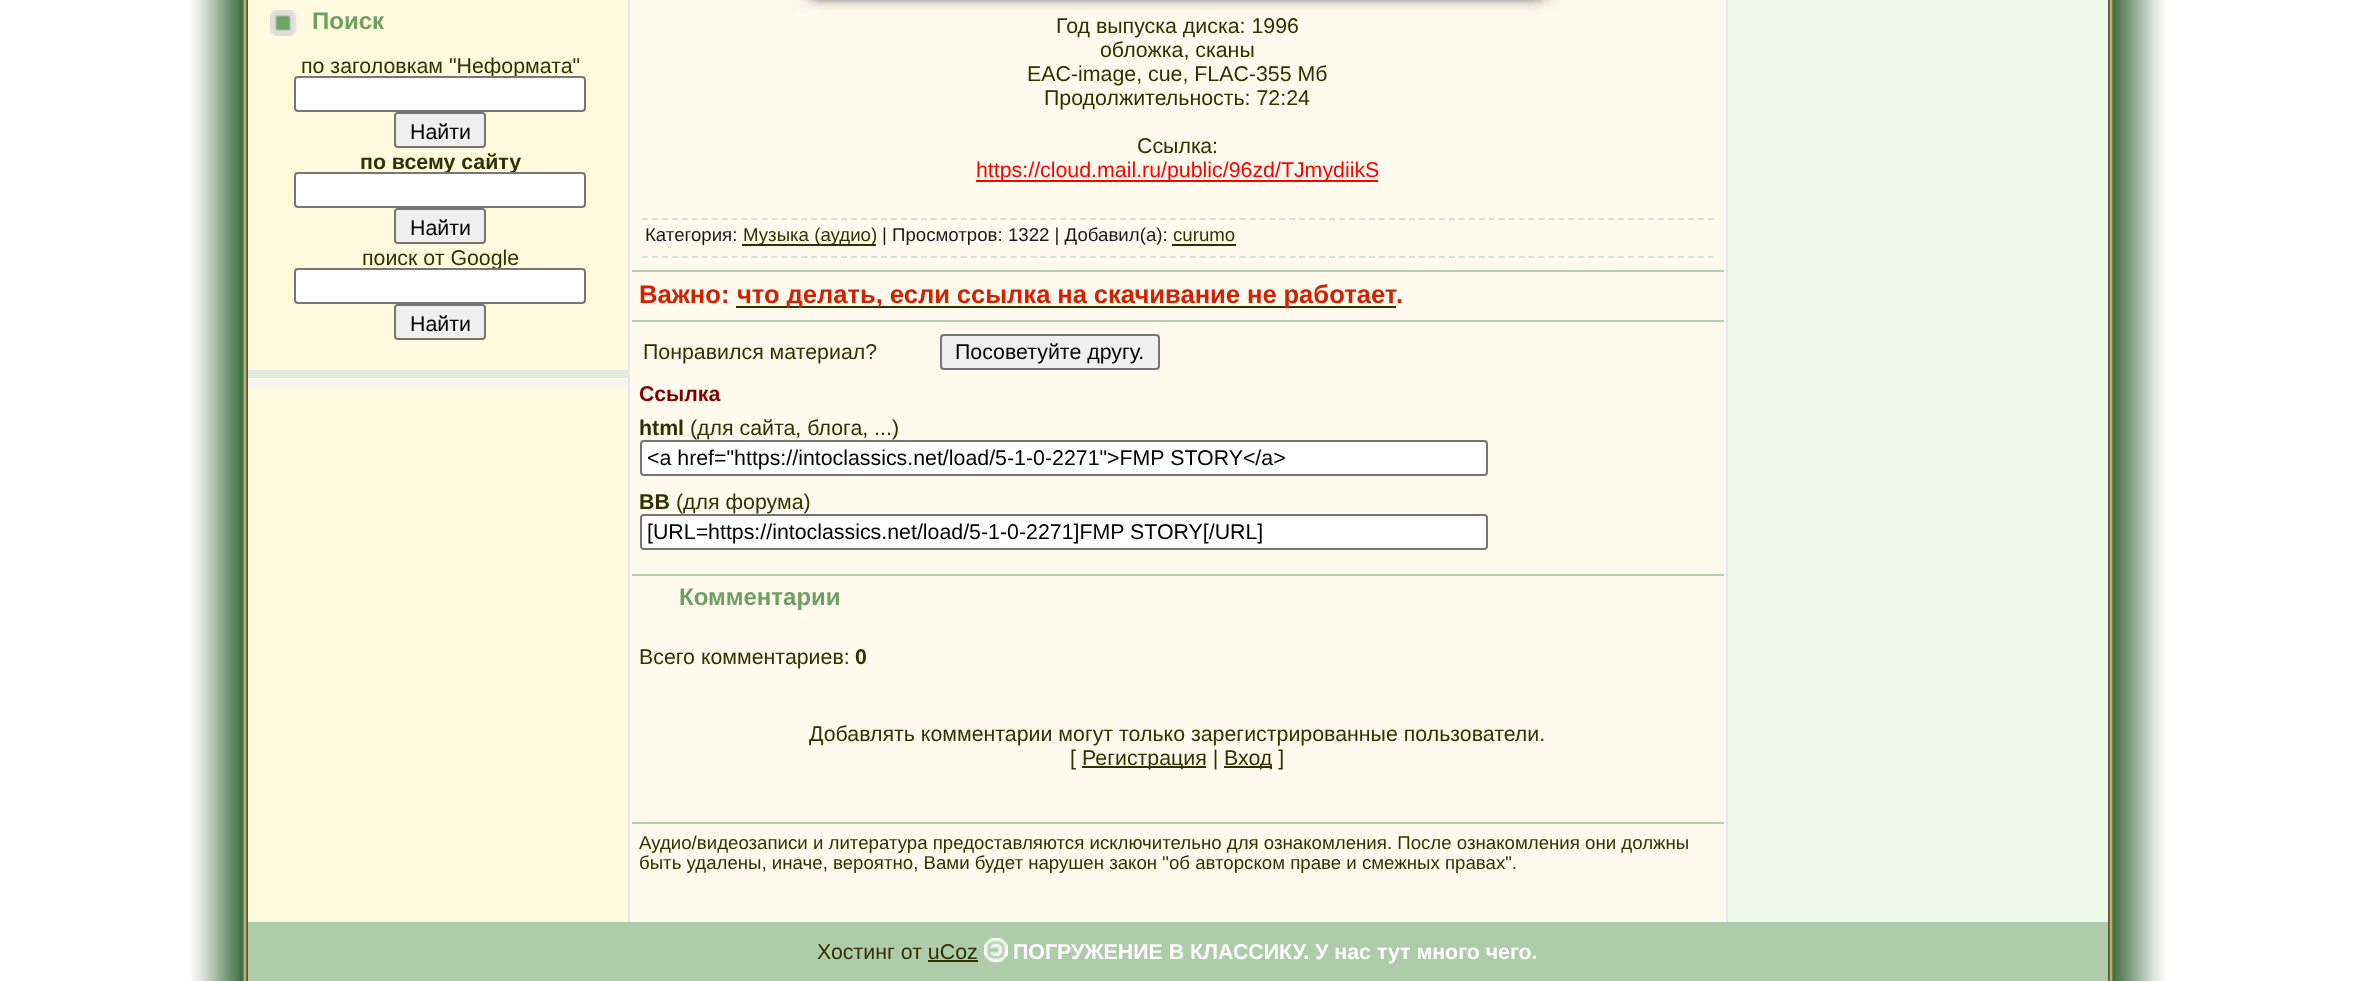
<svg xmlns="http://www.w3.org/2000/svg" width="2354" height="981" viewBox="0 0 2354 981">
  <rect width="100%" height="100%" fill="#ffffff"/>
  <image x="191" y="0" width="57" height="981" href="img1.png"/>
  <rect x="248" y="0" width="380" height="922" fill="#fffadd"/>
  <rect x="628" y="0" width="2" height="922" fill="#e5e7ea"/>
  <image x="270" y="10" width="27" height="26" href="img2.png"/>
  <text x="312" y="29" font-family="Liberation Sans" font-size="24" font-weight="bold" fill="#6da061">Поиск</text>
  <text x="301" y="73" font-family="Liberation Sans" font-size="21.35" fill="#333000">по заголовкам "Неформата"</text>
  <rect x="295" y="77" width="290" height="34" rx="3" fill="#ffffff" stroke="#767676" stroke-width="2"/>
  <rect x="395" y="113" width="90" height="34" rx="3" fill="#efefef" stroke="#767676" stroke-width="2"/>
  <text x="410" y="139" font-family="Liberation Sans" font-size="21.35" fill="#000000">Найти</text>
  <text x="360" y="169" font-family="Liberation Sans" font-size="21.35" font-weight="bold" fill="#333000">по всему сайту</text>
  <rect x="295" y="173" width="290" height="34" rx="3" fill="#ffffff" stroke="#767676" stroke-width="2"/>
  <rect x="395" y="209" width="90" height="34" rx="3" fill="#efefef" stroke="#767676" stroke-width="2"/>
  <text x="410" y="235" font-family="Liberation Sans" font-size="21.35" fill="#000000">Найти</text>
  <text x="362" y="265" font-family="Liberation Sans" font-size="21.35" fill="#333000">поиск от Google</text>
  <rect x="295" y="269" width="290" height="34" rx="3" fill="#ffffff" stroke="#767676" stroke-width="2"/>
  <rect x="395" y="305" width="90" height="34" rx="3" fill="#efefef" stroke="#767676" stroke-width="2"/>
  <text x="410" y="331" font-family="Liberation Sans" font-size="21.35" fill="#000000">Найти</text>
  <rect x="248" y="370" width="380" height="8" fill="#e3eae1"/>
  <rect x="248" y="380" width="380" height="8" fill="#f5f5f5"/>
  <rect x="630" y="0" width="1096" height="922" fill="#fefbee"/>
  <image x="792" y="0" width="768" height="14" href="img3.png"/>
  <text x="1056" y="33" font-family="Liberation Sans" font-size="21.35" fill="#333000">Год выпуска диска: 1996</text>
  <text x="1100" y="57" font-family="Liberation Sans" font-size="21.35" fill="#333000">обложка, сканы</text>
  <text x="1027" y="81" font-family="Liberation Sans" font-size="21.35" fill="#333000">EAC-image, cue, FLAC-355 Мб</text>
  <text x="1044" y="105" font-family="Liberation Sans" font-size="21.35" fill="#333000">Продолжительность: 72:24</text>
  <text x="1137" y="153" font-family="Liberation Sans" font-size="21.35" fill="#333000">Ссылкa:</text>
  <rect x="976" y="180" width="402" height="2" fill="#ff0000"/>
  <text x="976" y="177" font-family="Liberation Sans" font-size="21.35" fill="#ff0000">https://cloud.mail.ru/public/96zd/TJmydiikS</text>
  <path d="M642 219H1714" fill="none" stroke="#dddddd" stroke-width="2" stroke-dasharray="6 3.96"/>
  <path d="M642 257H1714" fill="none" stroke="#dddddd" stroke-width="2" stroke-dasharray="6 3.96"/>
  <text x="645" y="241" font-family="Liberation Sans" font-size="18.67" fill="#1a1a1a">Категория:</text>
  <rect x="742" y="244" width="134" height="2" fill="#333000"/>
  <text x="743" y="241" font-family="Liberation Sans" font-size="18.67" fill="#333000">Музыка (аудио)</text>
  <text x="882" y="241" font-family="Liberation Sans" font-size="18.67" fill="#1a1a1a">| Просмотров: 1322 | Добавил(а):</text>
  <text x="1173" y="241" font-family="Liberation Sans" font-size="18.67" fill="#333000">curumo</text>
  <rect x="1172" y="244" width="64" height="2" fill="#333000"/>
  <rect x="632" y="270" width="1092" height="2" fill="#b3cdad"/>
  <text x="639" y="303" font-family="Liberation Sans" font-size="25.6" font-weight="bold" fill="#d02200">Важно:</text>
  <rect x="736" y="306" width="660" height="2" fill="#333000"/>
  <text x="737" y="303" word-spacing="-0.25" font-family="Liberation Sans" font-size="25.6" font-weight="bold" fill="#d02200">что делать, если ссылка на скачивание не работает</text>
  <text x="1396" y="303" font-family="Liberation Sans" font-size="25.6" font-weight="bold" fill="#d02200">.</text>
  <rect x="632" y="320" width="1092" height="2" fill="#b3cdad"/>
  <text x="643" y="359" font-family="Liberation Sans" font-size="21.35" fill="#333000">Понравился материал?</text>
  <rect x="941" y="335" width="218" height="34" rx="3" fill="#efefef" stroke="#767676" stroke-width="2"/>
  <text x="955" y="359" font-family="Liberation Sans" font-size="21.35" fill="#000000">Посоветуйте другу.</text>
  <text x="639" y="401" font-family="Liberation Sans" font-size="21.35" font-weight="bold" fill="#800000">Ссылка</text>
  <text x="639" y="435" font-family="Liberation Sans" font-size="21.35" font-weight="bold" fill="#333000">html</text>
  <text x="690" y="435" font-family="Liberation Sans" font-size="21.35" fill="#333000">(для сайта, блога, ...)</text>
  <rect x="641" y="441" width="846" height="34" rx="3" fill="#ffffff" stroke="#767676" stroke-width="2"/>
  <text x="647" y="465" font-family="Liberation Sans" font-size="21.35" fill="#000000">&lt;a href="https://intoclassics.net/load/5-1-0-2271"&gt;FMP STORY&lt;/a&gt;</text>
  <text x="639" y="509" font-family="Liberation Sans" font-size="21.35" font-weight="bold" fill="#333000">BB</text>
  <text x="676" y="509" font-family="Liberation Sans" font-size="21.35" fill="#333000">(для форума)</text>
  <rect x="641" y="515" width="846" height="34" rx="3" fill="#ffffff" stroke="#767676" stroke-width="2"/>
  <text x="647" y="539" font-family="Liberation Sans" font-size="21.35" fill="#000000">[URL=https://intoclassics.net/load/5-1-0-2271]FMP STORY[/URL]</text>
  <rect x="632" y="574" width="1092" height="2" fill="#b3cdad"/>
  <text x="679" y="605" font-family="Liberation Sans" font-size="24" font-weight="bold" fill="#6da061">Комментарии</text>
  <text x="639" y="664" font-family="Liberation Sans" font-size="21.35" fill="#333000">Всего комментариев:</text>
  <text x="855" y="664" font-family="Liberation Sans" font-size="21.35" font-weight="bold" fill="#333000">0</text>
  <text x="809" y="741" font-family="Liberation Sans" font-size="21.35" fill="#333000">Добавлять комментарии могут только зарегистрированные пользователи.</text>
  <text x="1070" y="765" font-family="Liberation Sans" font-size="21.35" fill="#333000">[</text>
  <rect x="1082" y="766" width="124" height="2" fill="#333000"/>
  <text x="1082" y="765" font-family="Liberation Sans" font-size="21.35" fill="#333000">Регистрация |</text>
  <rect x="1224" y="766" width="48" height="2" fill="#333000"/>
  <text x="1224" y="765" font-family="Liberation Sans" font-size="21.35" fill="#333000">Вход ]</text>
  <rect x="632" y="822" width="1092" height="2" fill="#b3cdad"/>
  <text x="639" y="849" font-family="Liberation Sans" font-size="18.67" fill="#333000">Аудио/видеозаписи и литература предоставляются исключительно для ознакомления. После ознакомления они должны</text>
  <text x="639" y="869" font-family="Liberation Sans" font-size="18.67" fill="#333000">быть удалены, иначе, вероятно, Вами будет нарушен закон "об авторском праве и смежных правах".</text>
  <rect x="1728" y="0" width="380" height="922" fill="#eefbea"/>
  <rect x="1726" y="0" width="2" height="922" fill="#e5e7ea"/>
  <image x="2108" y="0" width="58" height="981" href="img4.png"/>
  <rect x="248" y="922" width="1860" height="59" fill="#aeccaa"/>
  <text x="817" y="959" font-family="Liberation Sans" font-size="21.35" fill="#333000">Хостинг от uCoz</text>
  <rect x="928" y="960" width="50" height="2" fill="#333000"/>
  <image x="984" y="938" width="24" height="25" href="img5.png"/>
  <text x="1013" y="959" font-family="Liberation Sans" font-size="21.35" font-weight="bold" fill="#ffffff">ПОГРУЖЕНИЕ В КЛАССИКУ. У нас тут много чего.</text>
</svg>
